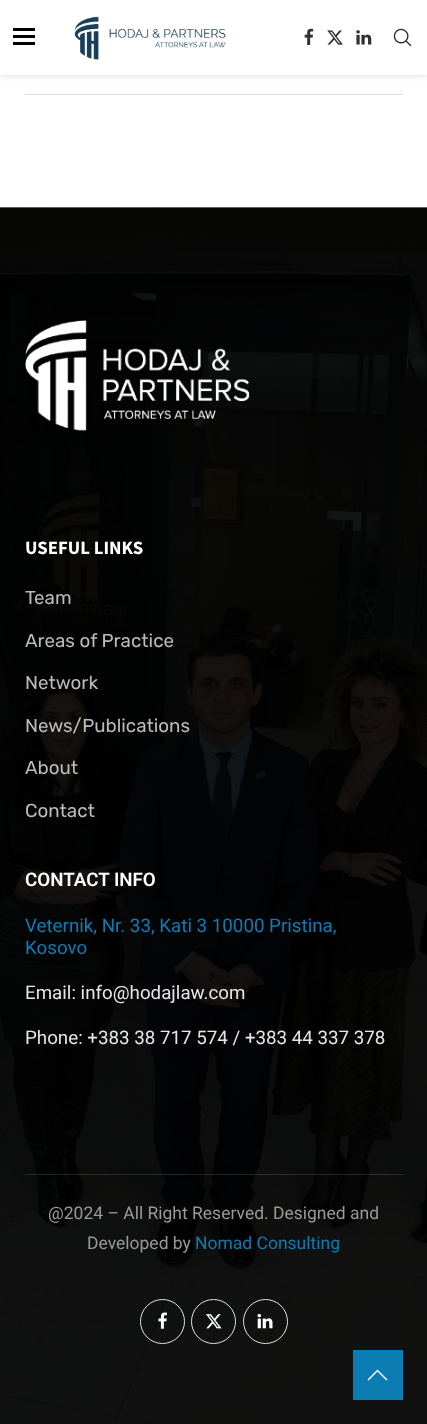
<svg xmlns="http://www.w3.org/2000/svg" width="427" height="1424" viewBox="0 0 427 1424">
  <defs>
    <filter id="blur1" x="-50%" y="-200%" width="200%" height="500%"><feGaussianBlur stdDeviation="3"/></filter>
  </defs>
  <rect width="100%" height="100%" fill="#ffffff"/>
  <rect x="0" y="1" width="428" height="75" fill="#bebebe" fill-opacity="0.46" filter="url(#blur1)"/>
  <rect x="0" y="0" width="427" height="75" fill="#ffffff"/>
  <rect x="13" y="28" width="22" height="3" fill="#000000"/>
  <rect x="13" y="35" width="22" height="3" fill="#000000"/>
  <rect x="13" y="42" width="22" height="3" fill="#000000"/>
  <image x="74" y="16" width="152" height="44" href="img1.png"/>
  <image x="304" y="28" width="10" height="17" href="img2.png"/>
  <image x="327" y="30" width="16" height="15" href="img3.png"/>
  <image x="356" y="30" width="16" height="15" href="img4.png"/>
  <image x="393" y="28" width="19" height="19" href="img5.png"/>
  <rect x="25" y="94" width="378" height="1" fill="#dedede"/>
  <image x="0" y="207" width="427" height="1217" href="img6.png"/>
  <image x="25" y="320" width="225" height="111" href="img7.png"/>
  <text x="25" y="554" font-family="Source Sans Pro" font-size="18.75" font-weight="bold" fill="#ffffff">USEFUL LINKS</text>
  <text x="25" y="604" font-family="Rubik" font-size="18.75" fill="#bbbbbb">Team</text>
  <text x="25" y="647" font-family="Rubik" font-size="18.75" fill="#bbbbbb">Areas of Practice</text>
  <text x="25" y="689" font-family="Rubik" font-size="18.75" fill="#bbbbbb">Network</text>
  <text x="25" y="732" font-family="Rubik" font-size="18.75" fill="#bbbbbb">News/Publications</text>
  <text x="25" y="774" font-family="Rubik" font-size="18.75" fill="#bbbbbb">About</text>
  <text x="25" y="817" font-family="Rubik" font-size="18.75" fill="#bbbbbb">Contact</text>
  <text x="25" y="886" font-family="Roboto" font-size="18.75" font-weight="600" fill="#ffffff">CONTACT INFO</text>
  <text x="25" y="932" font-family="Roboto" font-size="18.75" fill="#0b7db3">Veternik, Nr. 33, Kati 3 10000 Pristina,</text>
  <text x="25" y="954" font-family="Roboto" font-size="18.75" fill="#0b7db3">Kosovo</text>
  <text x="25" y="999" font-family="Roboto" font-size="18.75" fill="#e6e6e6">Email: info@hodajlaw.com</text>
  <text x="25" y="1044" font-family="Roboto" font-size="18.75" fill="#e6e6e6">Phone: +383 38 717 574 / +383 44 337 378</text>
  <rect x="25" y="1174" width="378" height="1" fill="#ffffff" fill-opacity="0.13"/>
  <text x="48" y="1219" font-family="Roboto" font-size="17.5" fill="#999999">@2024 – All Right Reserved. Designed and</text>
  <text x="87" y="1249" font-family="Roboto" font-size="17.5" fill="#999999">Developed by</text>
  <text x="195" y="1249" font-family="Roboto" font-size="17.5" fill="#0b7db3">Nomad Consulting</text>
  <circle cx="162.5" cy="1321.5" r="22" fill="none" stroke="#e0e0e0"/>
  <image x="158" y="1312" width="9" height="17" href="img8.png"/>
  <circle cx="213.5" cy="1321.5" r="22" fill="none" stroke="#e0e0e0"/>
  <image x="206" y="1314" width="16" height="15" href="img9.png"/>
  <circle cx="265.5" cy="1321.5" r="22" fill="none" stroke="#e0e0e0"/>
  <image x="257" y="1314" width="16" height="15" href="img10.png"/>
  <rect x="353" y="1350" width="50" height="50" fill="#0b7db3"/>
  <path d="M377.5 1369.5L367.5 1379.5L368.5 1380.5L377.5 1371.5L386.5 1380.5L387.5 1379.5Z" fill="#ffffff"/>
</svg>
